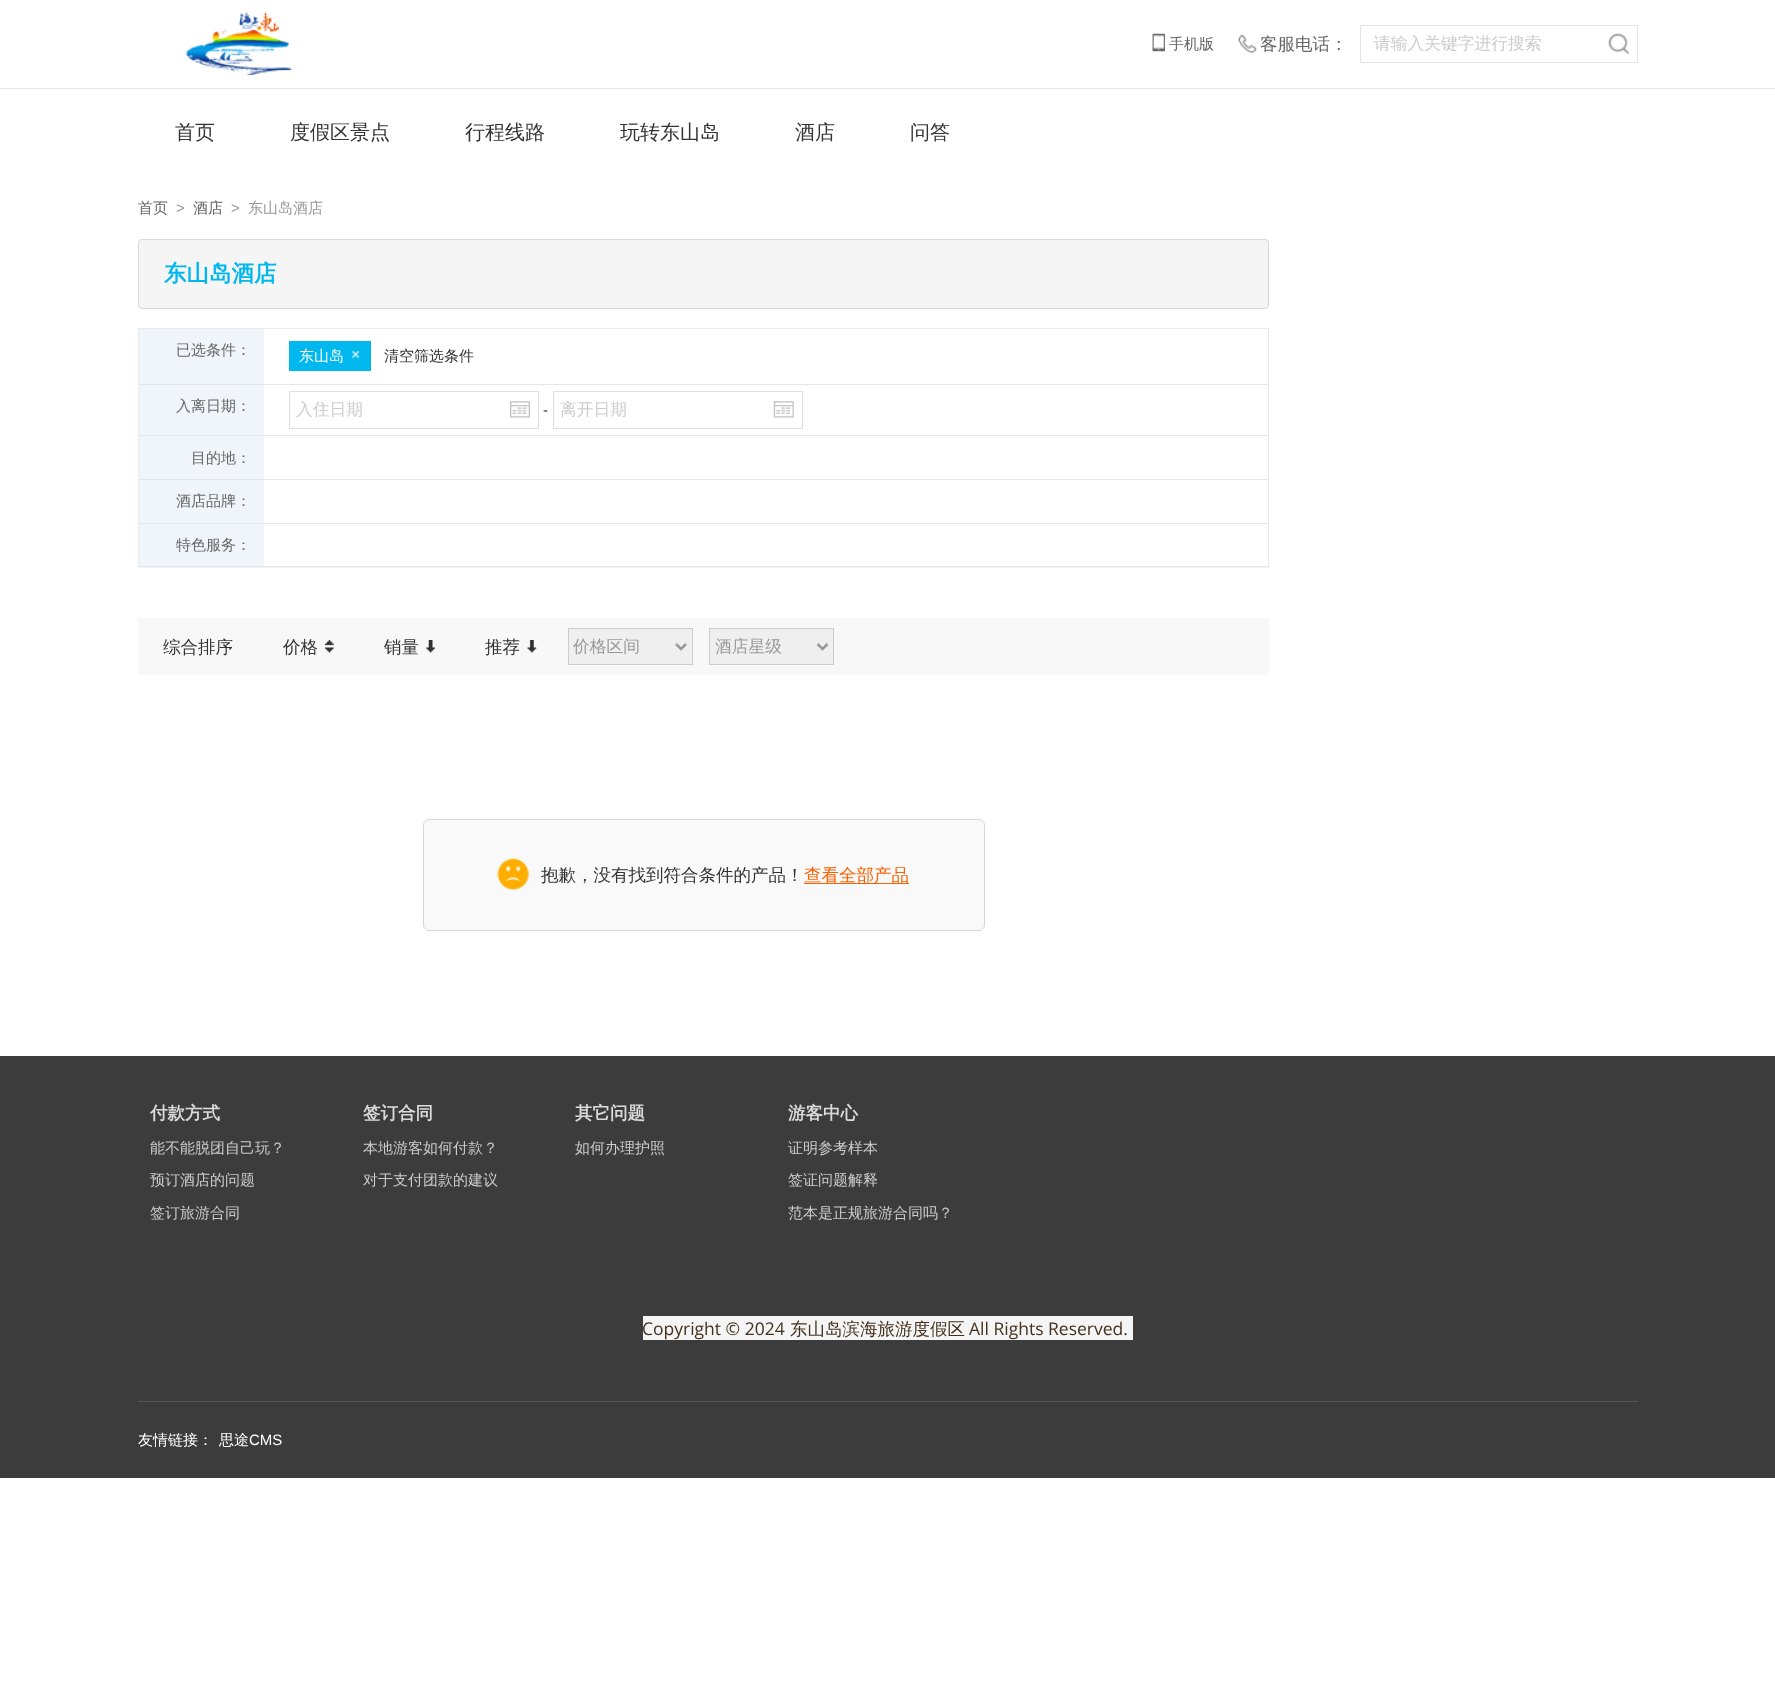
<svg xmlns="http://www.w3.org/2000/svg" width="1775" height="1702" viewBox="0 0 1775 1702">
  <rect width="100%" height="100%" fill="#ffffff"/>
  <rect x="0" y="88" width="1775" height="1" fill="#e5e5e5"/>
  <image x="186" y="12" width="106" height="63" href="img1.png"/>
  <image x="1152" y="33" width="13" height="19" href="img2.png"/>
  <text x="1169" y="49" font-family="WenQuanYi Zen Hei" font-size="15" font-weight="500" fill="#666666">手机版</text>
  <image x="1238" y="35" width="19" height="18" href="img3.png"/>
  <text x="1260" y="50" font-family="WenQuanYi Zen Hei" font-size="17.5" font-weight="500" fill="#666666">客服电话：</text>
  <rect x="1360.5" y="25.5" width="277" height="37" fill="none" stroke="#e5e5e5"/>
  <text x="1374" y="49" font-family="WenQuanYi Zen Hei" font-size="16.75" font-weight="500" fill="#cccccc">请输入关键字进行搜索</text>
  <image x="1608" y="33" width="21" height="21" href="img4.png"/>
  <text x="175" y="139" font-family="WenQuanYi Zen Hei" font-size="20" font-weight="500" fill="#333333">首页</text>
  <text x="290" y="139" font-family="WenQuanYi Zen Hei" font-size="20" font-weight="500" fill="#333333">度假区景点</text>
  <text x="465" y="139" font-family="WenQuanYi Zen Hei" font-size="20" font-weight="500" fill="#333333">行程线路</text>
  <text x="620" y="139" font-family="WenQuanYi Zen Hei" font-size="20" font-weight="500" fill="#333333">玩转东山岛</text>
  <text x="795" y="139" font-family="WenQuanYi Zen Hei" font-size="20" font-weight="500" fill="#333333">酒店</text>
  <text x="910" y="139" font-family="WenQuanYi Zen Hei" font-size="20" font-weight="500" fill="#333333">问答</text>
  <text x="138" y="213" font-family="WenQuanYi Zen Hei" font-size="15" font-weight="500" fill="#666666">首页</text>
  <text x="176" y="213" font-family="Liberation Sans" font-size="15" fill="#999999">&gt;</text>
  <text x="193" y="213" font-family="WenQuanYi Zen Hei" font-size="15" font-weight="500" fill="#666666">酒店</text>
  <text x="231" y="213" font-family="Liberation Sans" font-size="15" fill="#999999">&gt;</text>
  <text x="248" y="213" font-family="WenQuanYi Zen Hei" font-size="15" font-weight="500" fill="#999999">东山岛酒店</text>
  <rect x="138.5" y="239.5" width="1130" height="69" rx="3.5" fill="#f5f5f5" stroke="#d8d8d8"/>
  <text x="164" y="281" font-family="WenQuanYi Zen Hei" font-size="22.5" font-weight="bold" fill="#00b7ee">东山岛酒店</text>
  <rect x="138" y="328" width="1131" height="1" fill="#ebebeb"/>
  <rect x="1268" y="328" width="1" height="240" fill="#ebebeb"/>
  <rect x="138" y="328" width="1" height="240" fill="#ebebeb"/>
  <rect x="139" y="329" width="125" height="55" fill="#f0f5fb"/>
  <rect x="139" y="384" width="1129" height="1" fill="#e6e6e6"/>
  <text x="176" y="355" font-family="WenQuanYi Zen Hei" font-size="15" font-weight="500" fill="#666666">已选条件：</text>
  <rect x="289" y="341" width="82" height="30" fill="#00b7ee"/>
  <text x="299" y="361" font-family="WenQuanYi Zen Hei" font-size="15" font-weight="500" fill="#ffffff">东山岛</text>
  <image x="351" y="350" width="9" height="9" href="img5.png"/>
  <text x="384" y="361" font-family="WenQuanYi Zen Hei" font-size="15" font-weight="500" fill="#333333">清空筛选条件</text>
  <rect x="139" y="385" width="125" height="50" fill="#f0f5fb"/>
  <rect x="139" y="435" width="1129" height="1" fill="#e6e6e6"/>
  <text x="176" y="411" font-family="WenQuanYi Zen Hei" font-size="15" font-weight="500" fill="#666666">入离日期：</text>
  <rect x="289.5" y="391.5" width="249" height="37" fill="none" stroke="#dedfe3"/>
  <text x="296" y="415" font-family="WenQuanYi Zen Hei" font-size="16.75" font-weight="500" fill="#cccccc">入住日期</text>
  <image x="510" y="401" width="20" height="17" href="img6.png"/>
  <text x="543" y="415" font-family="Liberation Sans" font-size="15" fill="#333333">-</text>
  <rect x="553.5" y="391.5" width="249" height="37" fill="none" stroke="#dedfe3"/>
  <text x="560" y="415" font-family="WenQuanYi Zen Hei" font-size="16.75" font-weight="500" fill="#cccccc">离开日期</text>
  <image x="773" y="401" width="21" height="17" href="img7.png"/>
  <rect x="139" y="436" width="125" height="43" fill="#f0f5fb"/>
  <rect x="139" y="479" width="1129" height="1" fill="#e6e6e6"/>
  <text x="191" y="463" font-family="WenQuanYi Zen Hei" font-size="15" font-weight="500" fill="#666666">目的地：</text>
  <rect x="139" y="480" width="125" height="43" fill="#f0f5fb"/>
  <rect x="139" y="523" width="1129" height="1" fill="#e6e6e6"/>
  <text x="176" y="506" font-family="WenQuanYi Zen Hei" font-size="15" font-weight="500" fill="#666666">酒店品牌：</text>
  <rect x="139" y="524" width="1129" height="44" fill="#f0f5fb"/>
  <rect x="139" y="566" width="1129" height="1" fill="#e6e6e6"/>
  <text x="176" y="550" font-family="WenQuanYi Zen Hei" font-size="15" font-weight="500" fill="#666666">特色服务：</text>
  <rect x="264" y="524" width="1004" height="42" fill="#ffffff"/>
  <rect x="138" y="618" width="1131" height="57" fill="#f9f8f8"/>
  <text x="163" y="653" font-family="WenQuanYi Zen Hei" font-size="17.5" font-weight="500" fill="#333333">综合排序</text>
  <text x="283" y="653" font-family="WenQuanYi Zen Hei" font-size="17.5" font-weight="500" fill="#333333">价格</text>
  <image x="325" y="640" width="9" height="13" href="img8.png"/>
  <text x="384" y="653" font-family="WenQuanYi Zen Hei" font-size="17.5" font-weight="500" fill="#333333">销量</text>
  <image x="426" y="640" width="9" height="13" href="img9.png"/>
  <text x="485" y="653" font-family="WenQuanYi Zen Hei" font-size="17.5" font-weight="500" fill="#333333">推荐</text>
  <image x="527" y="640" width="10" height="13" href="img10.png"/>
  <rect x="568.5" y="628.5" width="124" height="36" fill="#efefef" stroke="#cccccc"/>
  <path d="M676 644L681 649L686 644" fill="none" stroke="#999999" stroke-width="2.5"/>
  <text x="573" y="652" font-family="WenQuanYi Zen Hei" font-size="16.75" font-weight="500" fill="#999999">价格区间</text>
  <rect x="709.5" y="628.5" width="124" height="36" fill="#efefef" stroke="#cccccc"/>
  <path d="M817.5 644L822.5 649L827.5 644" fill="none" stroke="#999999" stroke-width="2.5"/>
  <text x="715" y="652" font-family="WenQuanYi Zen Hei" font-size="16.75" font-weight="500" fill="#999999">酒店星级</text>
  <rect x="423.5" y="819.5" width="561" height="111" rx="5.5" fill="#f9f9f9" stroke="#d8d8d8"/>
  <image x="497" y="858" width="32" height="32" href="img11.png"/>
  <text x="541" y="881" font-family="WenQuanYi Zen Hei" font-size="17.5" font-weight="500" fill="#333333">抱歉，没有找到符合条件的产品！</text>
  <rect x="804" y="883" width="105" height="1" fill="#fc6000"/>
  <text x="804" y="881" font-family="WenQuanYi Zen Hei" font-size="17.5" font-weight="500" fill="#fc6000">查看全部产品</text>
  <rect x="0" y="1056" width="1775" height="422" fill="#3c3c3c"/>
  <text x="150" y="1119" font-family="WenQuanYi Zen Hei" font-size="17.5" font-weight="bold" fill="#dadada">付款方式</text>
  <text x="150" y="1153" font-family="WenQuanYi Zen Hei" font-size="15" font-weight="500" fill="#cccccc">能不能脱团自己玩？</text>
  <text x="150" y="1185" font-family="WenQuanYi Zen Hei" font-size="15" font-weight="500" fill="#cccccc">预订酒店的问题</text>
  <text x="150" y="1218" font-family="WenQuanYi Zen Hei" font-size="15" font-weight="500" fill="#cccccc">签订旅游合同</text>
  <text x="363" y="1119" font-family="WenQuanYi Zen Hei" font-size="17.5" font-weight="bold" fill="#dadada">签订合同</text>
  <text x="363" y="1153" font-family="WenQuanYi Zen Hei" font-size="15" font-weight="500" fill="#cccccc">本地游客如何付款？</text>
  <text x="363" y="1185" font-family="WenQuanYi Zen Hei" font-size="15" font-weight="500" fill="#cccccc">对于支付团款的建议</text>
  <text x="575" y="1119" font-family="WenQuanYi Zen Hei" font-size="17.5" font-weight="bold" fill="#dadada">其它问题</text>
  <text x="575" y="1153" font-family="WenQuanYi Zen Hei" font-size="15" font-weight="500" fill="#cccccc">如何办理护照</text>
  <text x="788" y="1119" font-family="WenQuanYi Zen Hei" font-size="17.5" font-weight="bold" fill="#dadada">游客中心</text>
  <text x="788" y="1153" font-family="WenQuanYi Zen Hei" font-size="15" font-weight="500" fill="#cccccc">证明参考样本</text>
  <text x="788" y="1185" font-family="WenQuanYi Zen Hei" font-size="15" font-weight="500" fill="#cccccc">签证问题解释</text>
  <text x="788" y="1218" font-family="WenQuanYi Zen Hei" font-size="15" font-weight="500" fill="#cccccc">范本是正规旅游合同吗？</text>
  <rect x="643" y="1316" width="490" height="24" fill="#f5f5f5"/>
  <text x="642" y="1335" font-family="Open Sans" font-size="17.5" fill="#43311d">Copyright © 2024</text>
  <text x="790" y="1335" font-family="WenQuanYi Zen Hei" font-size="17.5" font-weight="500" fill="#43311d">东山岛滨海旅游度假区</text>
  <text x="969" y="1335" font-family="Open Sans" font-size="17.5" fill="#43311d">All Rights Reserved.</text>
  <rect x="138" y="1401" width="1500" height="1" fill="#565656"/>
  <text x="138" y="1445" font-family="WenQuanYi Zen Hei" font-size="15" font-weight="500" fill="#ffffff">友情链接：</text>
  <text x="219" y="1445" font-family="WenQuanYi Zen Hei" font-size="15" font-weight="500" fill="#ffffff">思途</text>
  <text x="249" y="1445" font-family="Liberation Sans" font-size="15" fill="#ffffff">CMS</text>
</svg>
